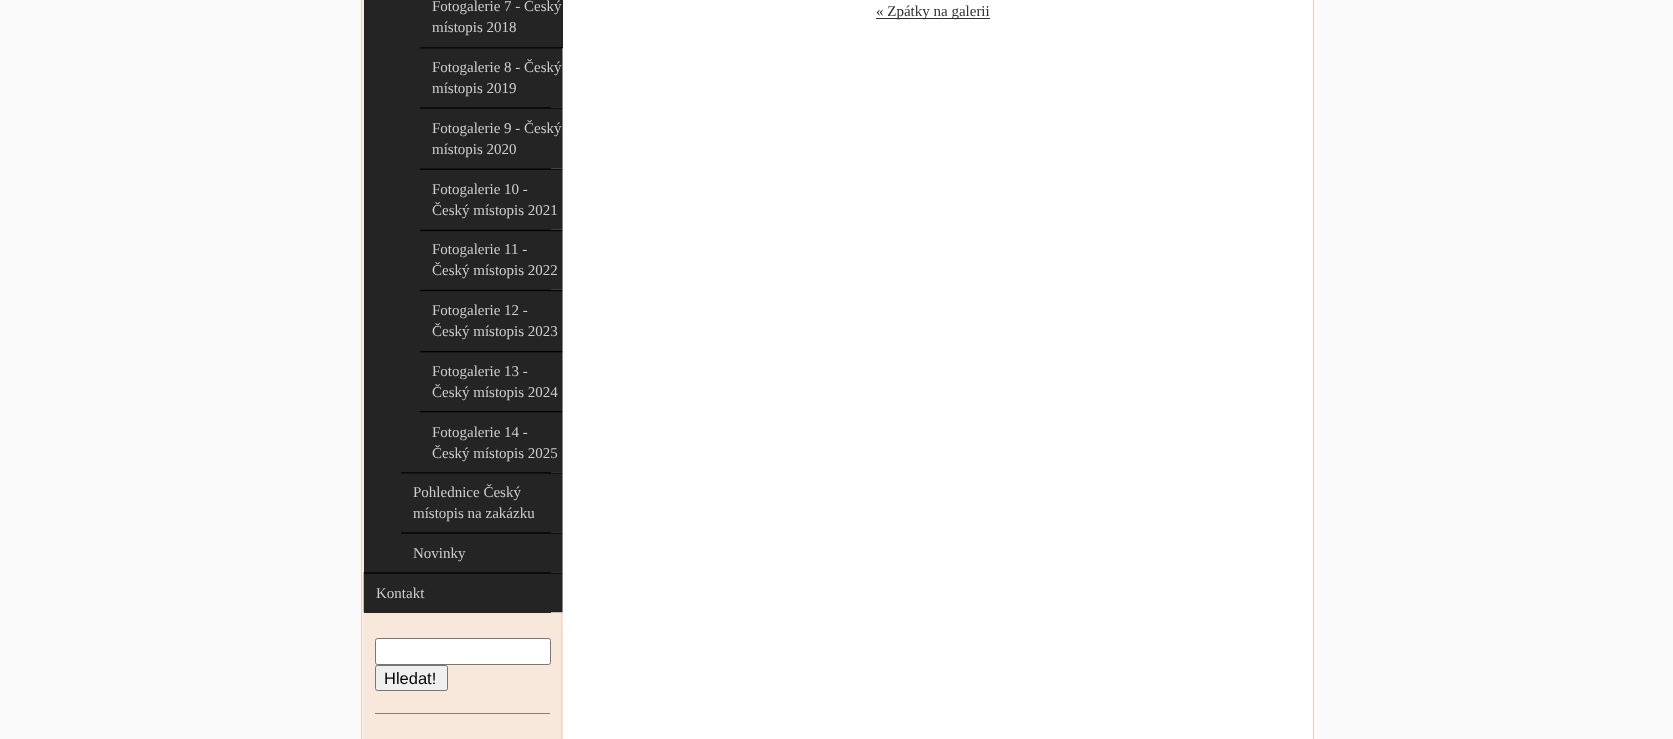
<svg xmlns="http://www.w3.org/2000/svg" width="1673" height="739" viewBox="0 0 1673 739">
  <rect width="100%" height="100%" fill="#fbfbfb"/>
  <rect x="1313" y="0" width="1" height="739" fill="#eecdba"/>
  <rect x="361" y="0" width="1" height="739" fill="#eecdba"/>
  <rect x="563" y="0" width="750" height="739" fill="#ffffff"/>
  <image x="362" y="0" width="201" height="739" href="img1.png"/>
  <rect x="364" y="0" width="187" height="613" fill="#242424"/>
  <rect x="551" y="0" width="12" height="48" fill="#242424"/>
  <text x="432" y="11" font-family="Liberation Serif" font-size="15" fill="#cdcdcd">Fotogalerie 7 - Český</text>
  <text x="432" y="32" font-family="Liberation Serif" font-size="15" fill="#cdcdcd">místopis 2018</text>
  <image x="420" y="47" width="143" height="61" href="img2.png"/>
  <text x="432" y="72" font-family="Liberation Serif" font-size="15" fill="#cdcdcd">Fotogalerie 8 - Český</text>
  <text x="432" y="93" font-family="Liberation Serif" font-size="15" fill="#cdcdcd">místopis 2019</text>
  <image x="420" y="107" width="143" height="62" href="img3.png"/>
  <text x="432" y="133" font-family="Liberation Serif" font-size="15" fill="#cdcdcd">Fotogalerie 9 - Český</text>
  <text x="432" y="154" font-family="Liberation Serif" font-size="15" fill="#cdcdcd">místopis 2020</text>
  <image x="420" y="168" width="143" height="62" href="img4.png"/>
  <text x="432" y="194" font-family="Liberation Serif" font-size="15" fill="#cdcdcd">Fotogalerie 10 -</text>
  <text x="432" y="215" font-family="Liberation Serif" font-size="15" fill="#cdcdcd">Český místopis 2021</text>
  <image x="420" y="229" width="143" height="61" href="img5.png"/>
  <text x="432" y="254" font-family="Liberation Serif" font-size="15" fill="#cdcdcd">Fotogalerie 11 -</text>
  <text x="432" y="275" font-family="Liberation Serif" font-size="15" fill="#cdcdcd">Český místopis 2022</text>
  <image x="420" y="289" width="143" height="62" href="img6.png"/>
  <text x="432" y="315" font-family="Liberation Serif" font-size="15" fill="#cdcdcd">Fotogalerie 12 -</text>
  <text x="432" y="336" font-family="Liberation Serif" font-size="15" fill="#cdcdcd">Český místopis 2023</text>
  <image x="420" y="351" width="143" height="60" href="img7.png"/>
  <text x="432" y="376" font-family="Liberation Serif" font-size="15" fill="#cdcdcd">Fotogalerie 13 -</text>
  <text x="432" y="397" font-family="Liberation Serif" font-size="15" fill="#cdcdcd">Český místopis 2024</text>
  <image x="420" y="411" width="143" height="62" href="img8.png"/>
  <text x="432" y="437" font-family="Liberation Serif" font-size="15" fill="#cdcdcd">Fotogalerie 14 -</text>
  <text x="432" y="458" font-family="Liberation Serif" font-size="15" fill="#cdcdcd">Český místopis 2025</text>
  <image x="401" y="472" width="162" height="61" href="img9.png"/>
  <text x="413" y="497" font-family="Liberation Serif" font-size="15" fill="#cdcdcd">Pohlednice Český</text>
  <text x="413" y="518" font-family="Liberation Serif" font-size="15" fill="#cdcdcd">místopis na zakázku</text>
  <image x="401" y="532" width="162" height="41" href="img10.png"/>
  <text x="413" y="558" font-family="Liberation Serif" font-size="15" fill="#cdcdcd">Novinky</text>
  <image x="363" y="572" width="200" height="41" href="img11.png"/>
  <text x="376" y="598" font-family="Liberation Serif" font-size="15" fill="#cdcdcd">Kontakt</text>
  <rect x="375" y="713" width="175" height="1" fill="#808080"/>
  <rect x="375.5" y="638.5" width="175" height="26" rx="2" fill="#ffffff" stroke="#767676"/>
  <rect x="375.5" y="665.5" width="72" height="25" rx="2" fill="#efefef" stroke="#767676"/>
  <text x="384" y="684" font-family="Liberation Sans" font-size="16.5" fill="#000000">Hledat!</text>
  <rect x="876" y="18" width="114" height="1" fill="#303030"/>
  <text x="876" y="16" font-family="Liberation Serif" font-size="15" fill="#303030">« Zpátky na galerii</text>
</svg>
